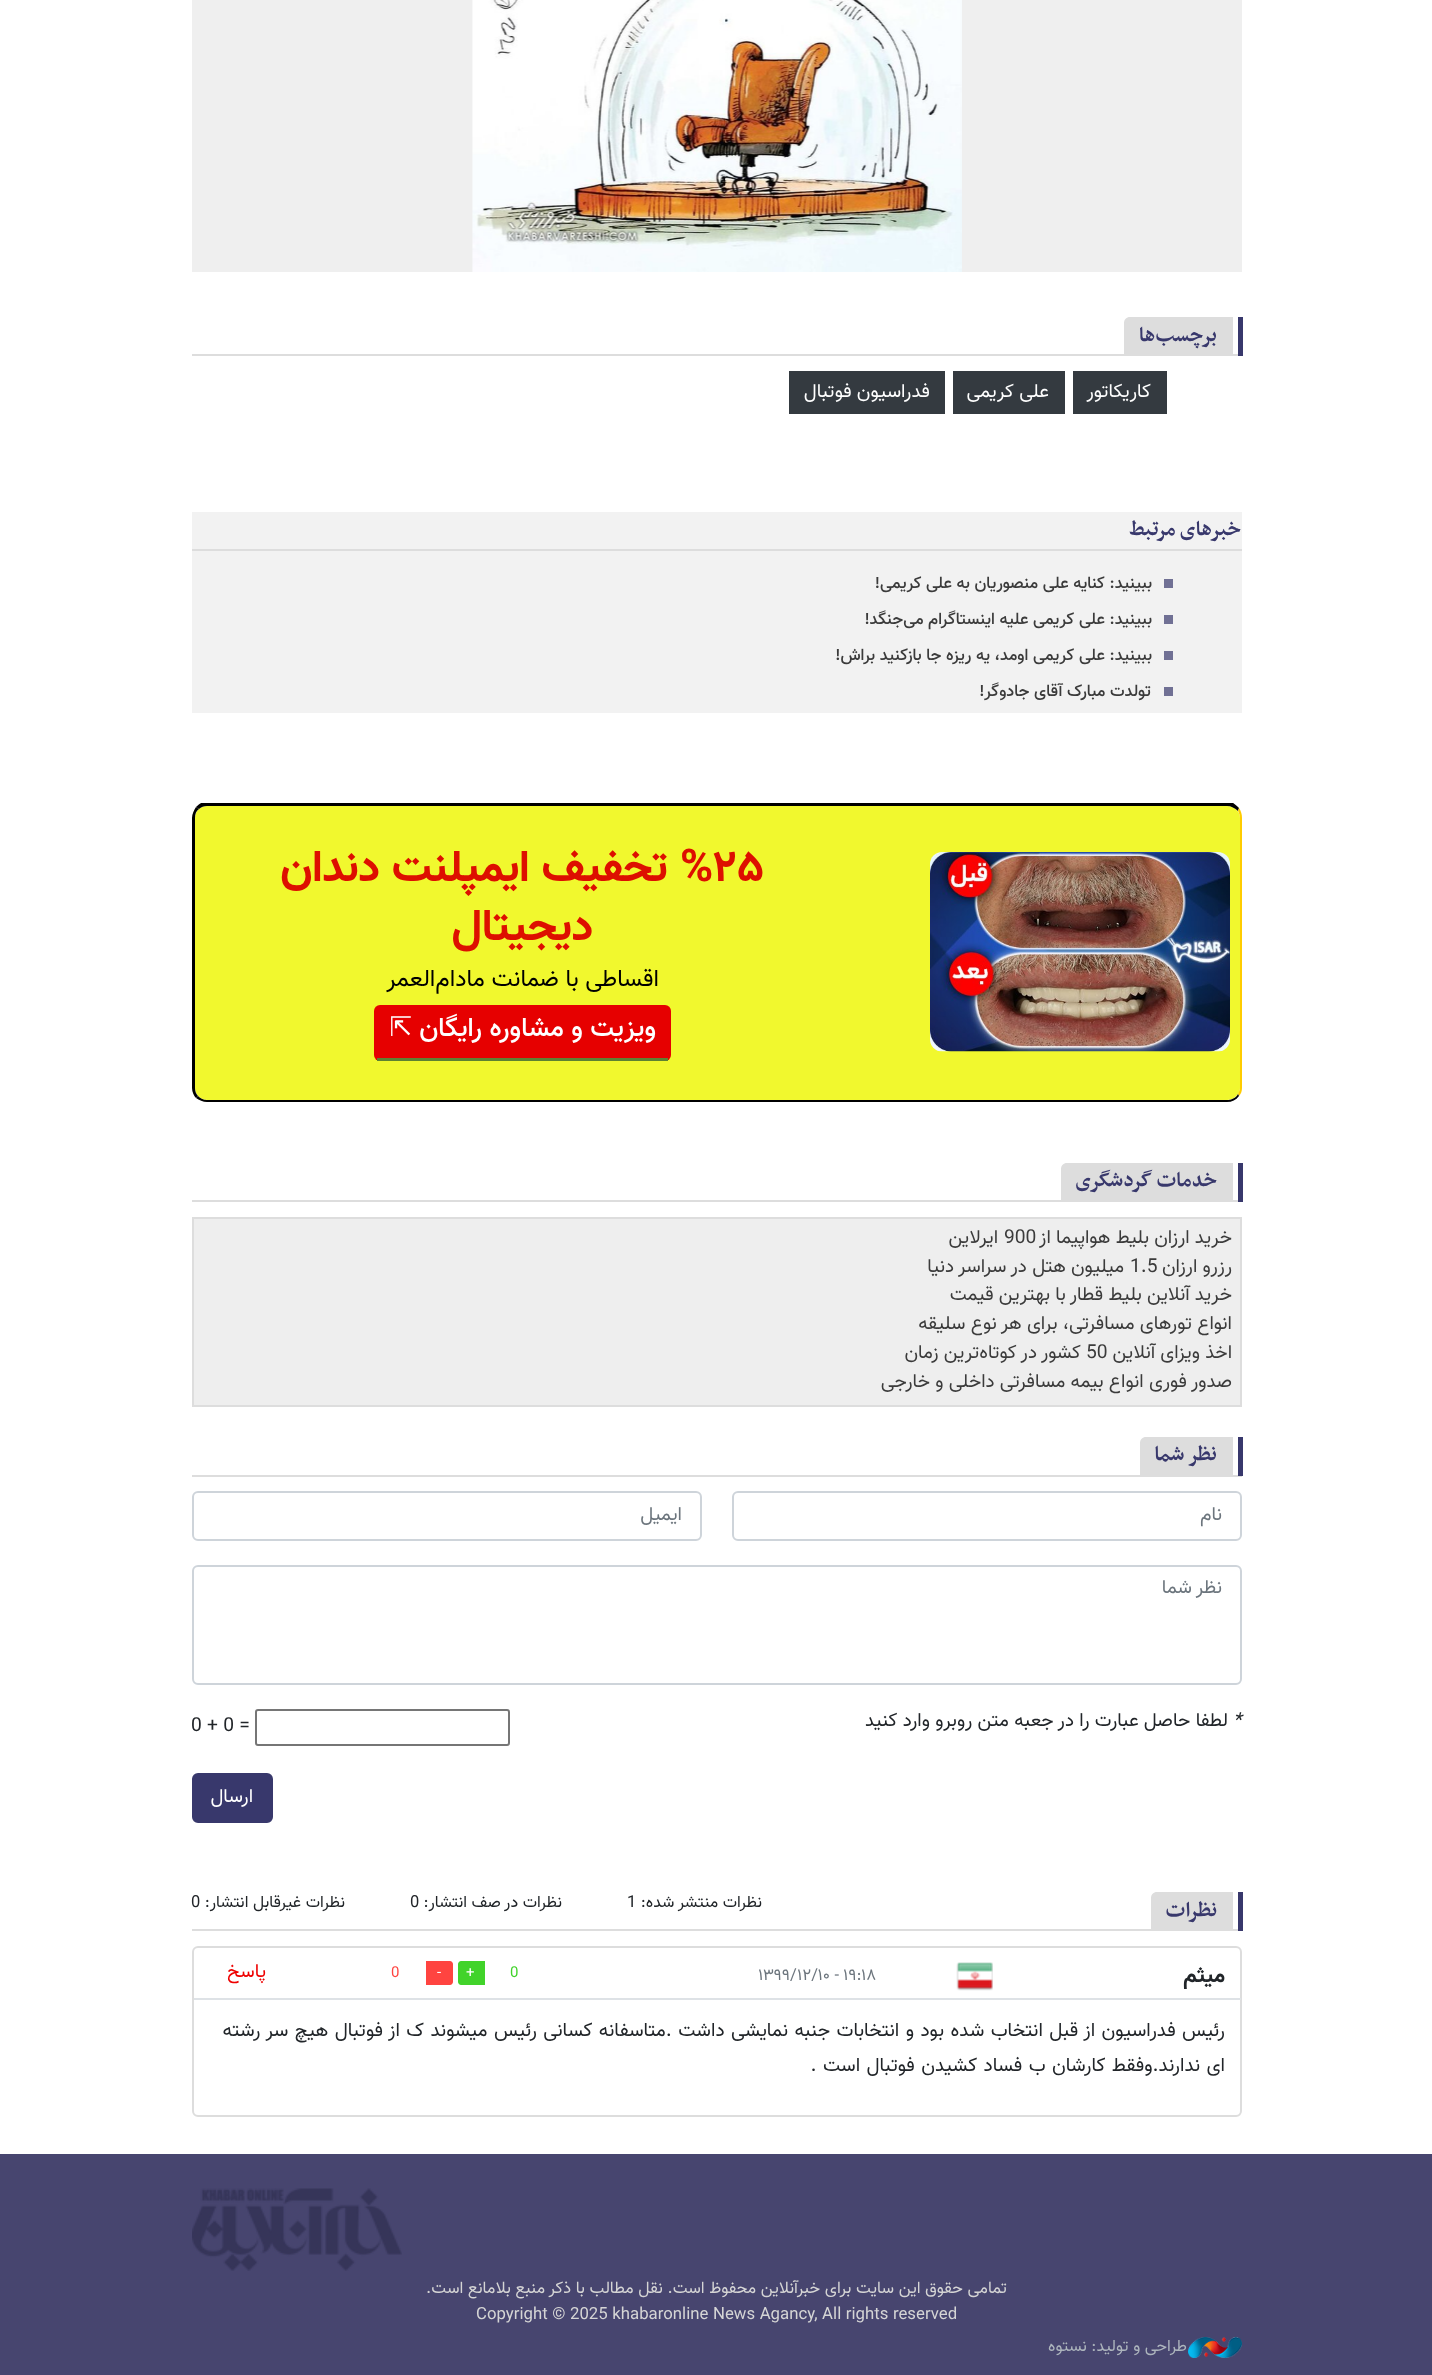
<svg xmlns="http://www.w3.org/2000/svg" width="1432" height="2375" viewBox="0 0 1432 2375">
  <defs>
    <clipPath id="clip1"><rect x="192" y="803" width="1050" height="300"/></clipPath>
  </defs>
  <rect width="100%" height="100%" fill="#ffffff"/>
  <rect x="192" y="0" width="1050" height="272" fill="#efefef"/>
  <image x="472" y="0" width="490" height="272" href="img1.png"/>
  <rect x="192" y="354" width="1050" height="2" fill="#dddddd"/>
  <path d="M1130 317H1233V356H1124V323C1124 319.5 1126.5 317 1130 317Z" fill="#dddddd"/>
  <rect x="1238" y="317" width="5" height="39" fill="#38386c"/>
  <text x="1217" y="341" font-family="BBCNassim" font-size="24" font-weight="bold" direction="rtl" fill="#38386c">برچسب‌ها</text>
  <rect x="1073" y="371" width="94" height="43" fill="#343a40"/>
  <text x="1151" y="397" font-family="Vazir" font-size="19.25" direction="rtl" fill="#ffffff">کاریکاتور</text>
  <rect x="953" y="371" width="112" height="43" fill="#343a40"/>
  <text x="1049" y="397" font-family="Vazir" font-size="19.25" direction="rtl" fill="#ffffff">علی کریمی</text>
  <rect x="789" y="371" width="156" height="43" fill="#343a40"/>
  <text x="930" y="397" font-family="Vazir" font-size="19.25" direction="rtl" fill="#ffffff">فدراسیون فوتبال</text>
  <rect x="192" y="512" width="1050" height="201" fill="#f2f2f2"/>
  <rect x="192" y="549" width="1050" height="2" fill="#dddddd"/>
  <text x="1241" y="535" font-family="BBCNassim" font-size="24" font-weight="bold" direction="rtl" fill="#38386c">خبرهای مرتبط</text>
  <rect x="1164" y="579" width="9" height="9" fill="#707094"/>
  <text x="1152" y="588" font-family="Vazir" font-size="16.8" font-weight="500" direction="rtl" fill="#3b3b3b">ببینید: کنایه علی منصوریان به علی کریمی!</text>
  <rect x="1164" y="615" width="9" height="9" fill="#707094"/>
  <text x="1152" y="624" font-family="Vazir" font-size="16.8" font-weight="500" direction="rtl" fill="#3b3b3b">ببینید: علی کریمی علیه اینستاگرام می‌جنگد!</text>
  <rect x="1164" y="651" width="9" height="9" fill="#707094"/>
  <text x="1152" y="660" font-family="Vazir" font-size="16.8" font-weight="500" direction="rtl" fill="#3b3b3b">ببینید: علی کریمی اومد، یه ریزه جا بازکنید براش!</text>
  <rect x="1164" y="687" width="9" height="9" fill="#707094"/>
  <text x="1151" y="696" font-family="Vazir" font-size="16.8" font-weight="500" direction="rtl" fill="#3b3b3b">تولدت مبارک آقای جادوگر!</text>
  <path d="M207 806H1227C1234 806 1240 811 1240 818V1088C1240 1094 1234 1100 1227 1100H207C200 1100 195 1094 195 1088V818C195 811 200 806 207 806Z" fill="#f1f82e"/>
  <g clip-path="url(#clip1)">
    <path d="M207 806C204 806 201 807 199 809L196 807C198 805 201 803 203 802H1231C1234 803 1237 806 1239 808L1238 811C1235 808 1231 806 1227 806Z" fill="#000000"/>
  </g>
  <path d="M1242 1088V818C1242 814 1241 811 1239 808L1238 811C1239 813 1240 815 1240 818V1088C1240 1090 1239 1092 1238 1094L1239 1096C1241 1094 1242 1091 1242 1088Z" fill="#ffcc00"/>
  <path d="M1239 1096C1236 1100 1232 1102 1227 1102H207C203 1102 199 1100 196 1098L198 1096C200 1098 203 1100 207 1100H1227C1231 1100 1236 1098 1238 1094Z" fill="#000000"/>
  <path d="M192 818V1088C192 1092 194 1096 196 1098L198 1096C196 1094 195 1091 195 1088V818C195 814 196 811 199 809L196 807C194 810 192 814 192 818Z" fill="#000000"/>
  <image x="930" y="852" width="300" height="200" href="img2.png"/>
  <text x="680" y="881" font-family="Vazir" font-size="45" font-weight="bold" fill="#dd0f00">%۲۵</text>
  <text x="668" y="881" font-family="Vazir" font-size="45" font-weight="bold" direction="rtl" fill="#dd0f00">تخفیف ایمپلنت دندان</text>
  <text x="593" y="940" font-family="Vazir" font-size="45" font-weight="bold" direction="rtl" fill="#dd0f00">دیجیتال</text>
  <text x="659" y="986" font-family="Vazir" font-size="24" direction="rtl" fill="#000000">اقساطی با ضمانت مادام‌العمر</text>
  <rect x="374" y="1005" width="297" height="56" rx="6" fill="#e60000"/>
  <rect x="377" y="1058" width="291" height="3" fill="#5d8133"/>
  <text x="656" y="1036" font-family="Vazir" font-size="27" font-weight="500" direction="rtl" fill="#ffffff">ویزیت و مشاوره رایگان</text>
  <text x="412" y="1036" font-family="DejaVu Sans" font-size="27" direction="rtl" fill="#ffffff">⇱</text>
  <rect x="192" y="1200" width="1050" height="2" fill="#dddddd"/>
  <path d="M1067 1163H1233V1202H1061V1169C1061 1165.5 1063.5 1163 1067 1163Z" fill="#dddddd"/>
  <rect x="1238" y="1163" width="5" height="39" fill="#38386c"/>
  <text x="1217" y="1186" font-family="BBCNassim" font-size="24" font-weight="bold" direction="rtl" fill="#38386c">خدمات گردشگری</text>
  <rect x="193" y="1218" width="1048" height="188" fill="#eeeeee" stroke="#dddddd" stroke-width="2"/>
  <text x="1232" y="1243" font-family="Vazir" font-size="19.25" direction="rtl" fill="#3b3b3b">خرید ارزان بلیط هواپیما از</text>
  <text x="1004" y="1243" font-family="Vazir" font-size="19.25" fill="#3b3b3b">900</text>
  <text x="998" y="1243" font-family="Vazir" font-size="19.25" direction="rtl" fill="#3b3b3b">ایرلاین</text>
  <text x="1232" y="1272" font-family="Vazir" font-size="19.25" direction="rtl" fill="#3b3b3b">رزرو ارزان</text>
  <text x="1130" y="1272" font-family="Vazir" font-size="19.25" fill="#3b3b3b">1.5</text>
  <text x="1124" y="1272" font-family="Vazir" font-size="19.25" direction="rtl" fill="#3b3b3b">میلیون هتل در سراسر دنیا</text>
  <text x="1232" y="1300" font-family="Vazir" font-size="19.25" direction="rtl" fill="#3b3b3b">خرید آنلاین بلیط قطار با بهترین قیمت</text>
  <text x="1232" y="1329" font-family="Vazir" font-size="19.25" direction="rtl" fill="#3b3b3b">انواع تورهای مسافرتی، برای هر نوع سلیقه</text>
  <text x="1232" y="1358" font-family="Vazir" font-size="19.25" direction="rtl" fill="#3b3b3b">اخذ ویزای آنلاین</text>
  <text x="1086" y="1358" font-family="Vazir" font-size="19.25" fill="#3b3b3b">50</text>
  <text x="1081" y="1358" font-family="Vazir" font-size="19.25" direction="rtl" fill="#3b3b3b">کشور در کوتاه‌ترین زمان</text>
  <text x="1232" y="1387" font-family="Vazir" font-size="19.25" direction="rtl" fill="#3b3b3b">صدور فوری انواع بیمه مسافرتی داخلی و خارجی</text>
  <rect x="192" y="1475" width="1050" height="2" fill="#dddddd"/>
  <path d="M1146 1437H1233V1476H1140V1443C1140 1439.5 1142.5 1437 1146 1437Z" fill="#dddddd"/>
  <rect x="1238" y="1437" width="5" height="39" fill="#38386c"/>
  <text x="1217" y="1460" font-family="BBCNassim" font-size="24" font-weight="bold" direction="rtl" fill="#38386c">نظر شما</text>
  <rect x="733" y="1492" width="508" height="48" rx="5" fill="none" stroke="#ced4da" stroke-width="2"/>
  <text x="1222" y="1520" font-family="Vazir" font-size="19.25" direction="rtl" fill="#6c757d">نام</text>
  <rect x="193" y="1492" width="508" height="48" rx="5" fill="none" stroke="#ced4da" stroke-width="2"/>
  <text x="682" y="1520" font-family="Vazir" font-size="19.25" direction="rtl" fill="#6c757d">ایمیل</text>
  <rect x="193" y="1566" width="1048" height="118" rx="5" fill="none" stroke="#ced4da" stroke-width="2"/>
  <text x="1222" y="1593" font-family="Vazir" font-size="19.25" direction="rtl" fill="#6c757d">نظر شما</text>
  <text x="1233" y="1726" font-family="Vazir" font-size="19.25" font-style="italic" fill="#212529">*</text>
  <text x="1228" y="1726" font-family="Vazir" font-size="19.25" direction="rtl" fill="#212529">لطفا حاصل عبارت را در جعبه متن روبرو وارد کنید</text>
  <rect x="256" y="1710" width="253" height="35" rx="2" fill="none" stroke="#767676" stroke-width="2"/>
  <text x="191" y="1731" font-family="Vazir" font-size="19.25" fill="#212529">0 + 0 =</text>
  <rect x="193" y="1774" width="79" height="48" rx="5" fill="#38386c" stroke="#38386c" stroke-width="2"/>
  <text x="253" y="1802" font-family="Vazir" font-size="19.25" direction="rtl" fill="#ffffff">ارسال</text>
  <text x="762" y="1907" font-family="Vazir" font-size="16.5" direction="rtl" fill="#212529">نظرات منتشر شده:</text>
  <text x="627" y="1907" font-family="Vazir" font-size="16.5" fill="#212529">1</text>
  <text x="562" y="1907" font-family="Vazir" font-size="16.5" direction="rtl" fill="#212529">نظرات در صف انتشار:</text>
  <text x="410" y="1907" font-family="Vazir" font-size="16.5" fill="#212529">0</text>
  <text x="345" y="1907" font-family="Vazir" font-size="16.5" direction="rtl" fill="#212529">نظرات غیرقابل انتشار:</text>
  <text x="191" y="1907" font-family="Vazir" font-size="16.5" fill="#212529">0</text>
  <rect x="193" y="1947" width="1048" height="169" rx="5" fill="none" stroke="#dddddd" stroke-width="2"/>
  <rect x="194" y="1998" width="1047" height="2" fill="#dee2e6"/>
  <text x="1225" y="1982" font-family="Vazir" font-size="22" font-weight="bold" direction="rtl" fill="#212529">میثم</text>
  <image x="956" y="1962" width="37" height="29" href="img3.png"/>
  <text x="758" y="1980" font-family="Vazir" font-size="16.5" fill="#6c757d">۱۳۹۹/۱۲/۱۰ - ۱۹:۱۸</text>
  <text x="510" y="1977" font-family="Vazir" font-size="15" fill="#41d32a">0</text>
  <path d="M461 1961H485V1985H461C459.5 1985 458 1983.5 458 1982V1964C458 1962.5 459.5 1961 461 1961Z" fill="#41d32a"/>
  <text x="466" y="1977" font-family="Vazir" font-size="15" fill="#ffffff">+</text>
  <path d="M426 1961H450C451.5 1961 453 1962.5 453 1964V1982C453 1983.5 451.5 1985 450 1985H426Z" fill="#ff4440"/>
  <text x="437" y="1977" font-family="Vazir" font-size="15" fill="#ffffff">-</text>
  <text x="391" y="1977" font-family="Vazir" font-size="15" fill="#ff4440">0</text>
  <text x="266" y="1977" font-family="Vazir" font-size="19.25" direction="rtl" fill="#ee0000">پاسخ</text>
  <text x="1225" y="2036" word-spacing="1.05" font-family="Vazir" font-size="19.5" direction="rtl" fill="#212529">رئیس فدراسیون از قبل انتخاب شده بود و انتخابات جنبه نمایشی داشت .متاسفانه کسانی رئیس میشوند ک از فوتبال هیچ سر رشته</text>
  <text x="1225" y="2071" word-spacing="1.05" font-family="Vazir" font-size="19.5" direction="rtl" fill="#212529">ای ندارند.وفقط کارشان ب فساد کشیدن فوتبال است .</text>
  <rect x="192" y="1929" width="1050" height="2" fill="#dddddd"/>
  <path d="M1157 1892H1233V1931H1151V1898C1151 1894.5 1153.5 1892 1157 1892Z" fill="#dddddd"/>
  <rect x="1238" y="1892" width="5" height="39" fill="#38386c"/>
  <text x="1217" y="1916" font-family="BBCNassim" font-size="24" font-weight="bold" direction="rtl" fill="#38386c">نظرات</text>
  <rect x="0" y="2154" width="1432" height="221" fill="#47456f"/>
  <image x="192" y="2188" width="210" height="83" href="img4.png"/>
  <text x="1007" y="2293" font-family="Vazir" font-size="16.8" direction="rtl" fill="#d5d5d5">تمامی حقوق این سایت برای خبرآنلاین محفوظ است. نقل مطالب با ذکر منبع بلامانع است.</text>
  <text x="476" y="2319" font-family="Vazir" font-size="16.8" fill="#d5d5d5">Copyright © 2025 khabaronline News Agancy, All rights reserved</text>
  <image x="1188" y="2337" width="54" height="21" href="img5.png"/>
  <text x="1187" y="2351" font-family="Vazir" font-size="16.5" direction="rtl" fill="#adb5bd">طراحی و تولید: نستوه</text>
</svg>
